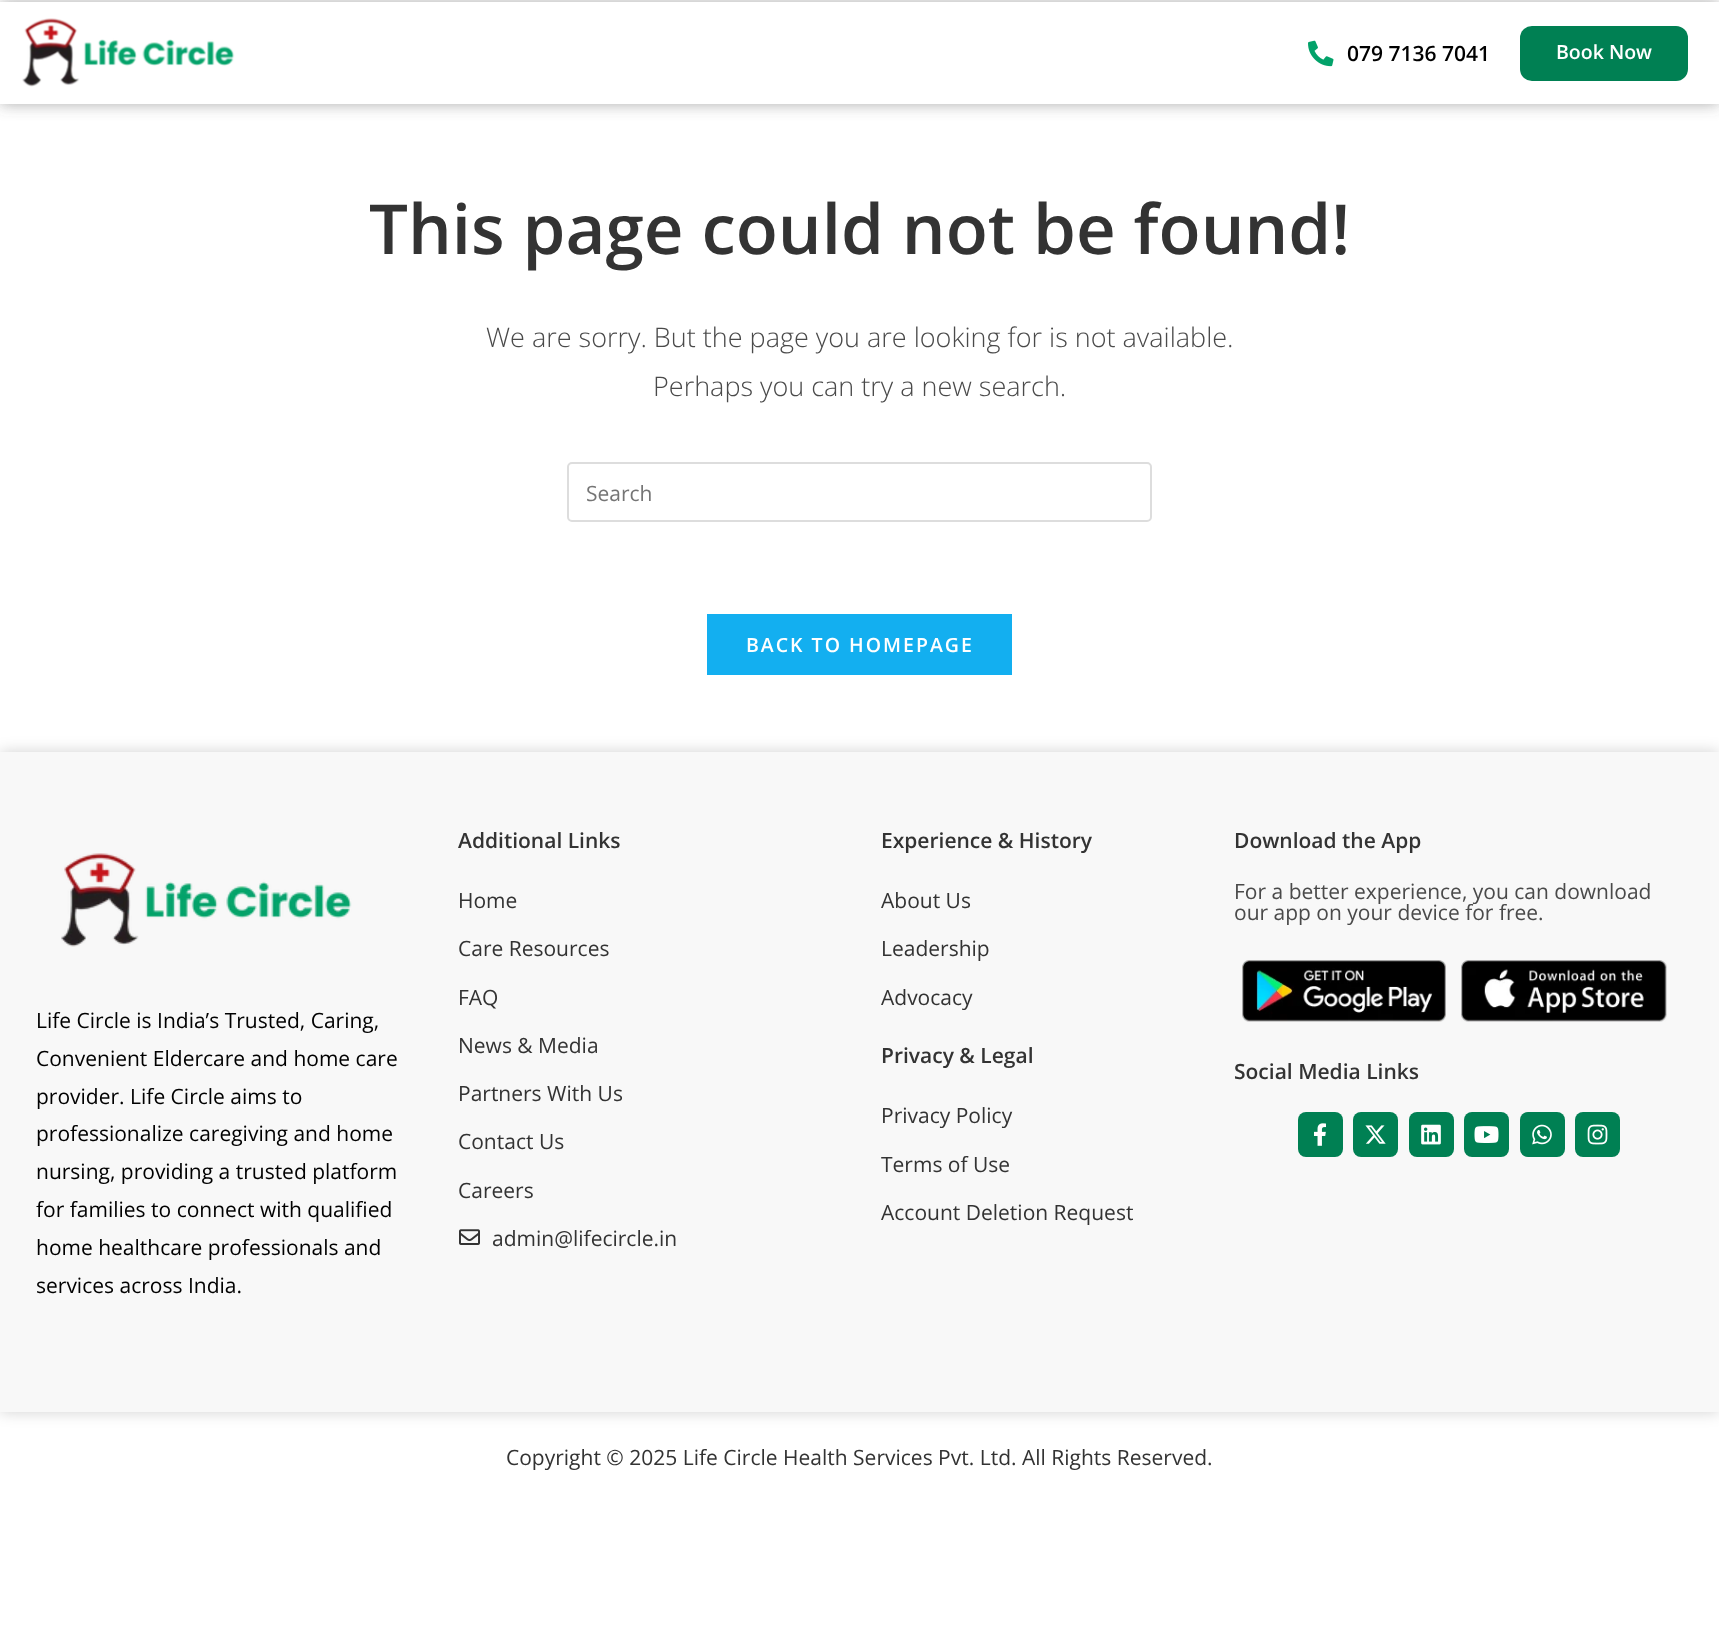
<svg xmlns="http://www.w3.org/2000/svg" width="1719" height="1643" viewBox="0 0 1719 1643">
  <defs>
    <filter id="blur1" x="-50%" y="-200%" width="200%" height="500%"><feGaussianBlur stdDeviation="7.5"/></filter>
  </defs>
  <rect width="100%" height="100%" fill="#ffffff"/>
  <rect x="0" y="2" width="1719" height="102" fill="#585858" fill-opacity="0.5" filter="url(#blur1)"/>
  <rect x="0" y="2" width="1719" height="102" fill="#ffffff"/>
  <image x="22" y="18" width="213" height="69" href="img1.png"/>
  <image x="1308" y="40" width="26" height="27" href="img2.png"/>
  <text x="1347" y="61" font-family="Open Sans" font-size="21" font-weight="600" fill="#000000">079 7136 7041</text>
  <rect x="1520" y="26" width="168" height="55" rx="12" fill="#008053"/>
  <text x="1556" y="59" font-family="Open Sans" font-size="19.5" font-weight="600" fill="#ffffff">Book Now</text>
  <text x="369" y="254" font-family="Open Sans" font-size="69" font-weight="600" fill="#333333">This page could not be found!</text>
  <text x="486" y="347" font-family="Open Sans" font-size="27" font-weight="300" fill="#4a4a4a">We are sorry. But the page you are looking for is not available.</text>
  <text x="653" y="396" font-family="Open Sans" font-size="27" font-weight="300" fill="#4a4a4a">Perhaps you can try a new search.</text>
  <rect x="568" y="463" width="583" height="58" rx="4" fill="none" stroke="#dddddd" stroke-width="2"/>
  <text x="586" y="501" font-family="Open Sans" font-size="21" fill="#757575">Search</text>
  <rect x="707" y="614" width="305" height="61" fill="#13aff0"/>
  <text x="746" y="652" font-family="Open Sans" font-size="19.5" font-weight="600" letter-spacing="2" fill="#ffffff">BACK TO HOMEPAGE</text>
  <rect x="0" y="752" width="1719" height="660" fill="#000000" fill-opacity="0.18" filter="url(#blur1)"/>
  <rect x="0" y="752" width="1719" height="660" fill="#f8f8f8"/>
  <text x="458" y="848" font-family="Open Sans" font-size="21" font-weight="600" fill="#333333">Additional Links</text>
  <text x="458" y="908" font-family="Open Sans" font-size="21" fill="#333333">Home</text>
  <text x="458" y="956" font-family="Open Sans" font-size="21" fill="#333333">Care Resources</text>
  <text x="458" y="1005" font-family="Open Sans" font-size="21" fill="#333333">FAQ</text>
  <text x="458" y="1053" font-family="Open Sans" font-size="21" fill="#333333">News &amp; Media</text>
  <text x="458" y="1101" font-family="Open Sans" font-size="21" fill="#333333">Partners With Us</text>
  <text x="458" y="1149" font-family="Open Sans" font-size="21" fill="#333333">Contact Us</text>
  <text x="458" y="1198" font-family="Open Sans" font-size="21" fill="#333333">Careers</text>
  <image x="459" y="1229" width="21" height="16" href="img3.png"/>
  <text x="492" y="1246" font-family="Open Sans" font-size="21" fill="#333333">admin@lifecircle.in</text>
  <text x="881" y="848" font-family="Open Sans" font-size="21" font-weight="600" fill="#333333">Experience &amp; History</text>
  <text x="881" y="908" font-family="Open Sans" font-size="21" fill="#333333">About Us</text>
  <text x="881" y="956" font-family="Open Sans" font-size="21" fill="#333333">Leadership</text>
  <text x="881" y="1005" font-family="Open Sans" font-size="21" fill="#333333">Advocacy</text>
  <text x="881" y="1063" font-family="Open Sans" font-size="21" font-weight="600" fill="#333333">Privacy &amp; Legal</text>
  <text x="881" y="1123" font-family="Open Sans" font-size="21" fill="#333333">Privacy Policy</text>
  <text x="881" y="1172" font-family="Open Sans" font-size="21" fill="#333333">Terms of Use</text>
  <text x="881" y="1220" font-family="Open Sans" font-size="21" fill="#333333">Account Deletion Request</text>
  <text x="1234" y="848" font-family="Open Sans" font-size="21" font-weight="600" fill="#333333">Download the App</text>
  <text x="1234" y="899" font-family="Open Sans" font-size="21" fill="#4a4a4a">For a better experience, you can download</text>
  <text x="1234" y="920" font-family="Open Sans" font-size="21" fill="#4a4a4a">our app on your device for free.</text>
  <image x="1242" y="960" width="204" height="62" href="img4.png"/>
  <image x="1461" y="960" width="206" height="62" href="img5.png"/>
  <text x="1234" y="1079" font-family="Open Sans" font-size="21" font-weight="600" fill="#333333">Social Media Links</text>
  <rect x="1298" y="1112" width="45" height="45" rx="8" fill="#008053"/>
  <image x="1314" y="1123" width="12" height="23" href="img6.png"/>
  <rect x="1353" y="1112" width="45" height="45" rx="8" fill="#008053"/>
  <image x="1365" y="1125" width="21" height="19" href="img7.png"/>
  <rect x="1409" y="1112" width="45" height="45" rx="8" fill="#008053"/>
  <image x="1421" y="1124" width="20" height="21" href="img8.png"/>
  <rect x="1464" y="1112" width="45" height="45" rx="8" fill="#008053"/>
  <image x="1474" y="1126" width="25" height="17" href="img9.png"/>
  <rect x="1520" y="1112" width="45" height="45" rx="8" fill="#008053"/>
  <image x="1532" y="1124" width="20" height="21" href="img10.png"/>
  <rect x="1575" y="1112" width="45" height="45" rx="8" fill="#008053"/>
  <image x="1587" y="1124" width="21" height="21" href="img11.png"/>
  <image x="61" y="853" width="291" height="94" href="img12.png"/>
  <text x="36" y="1028" font-family="Open Sans" font-size="21" fill="#000000">Life Circle is India’s Trusted, Caring,</text>
  <text x="36" y="1066" font-family="Open Sans" font-size="21" fill="#000000">Convenient Eldercare and home care</text>
  <text x="36" y="1104" font-family="Open Sans" font-size="21" fill="#000000">provider. Life Circle aims to</text>
  <text x="36" y="1141" font-family="Open Sans" font-size="21" fill="#000000">professionalize caregiving and home</text>
  <text x="36" y="1179" font-family="Open Sans" font-size="21" fill="#000000">nursing, providing a trusted platform</text>
  <text x="36" y="1217" font-family="Open Sans" font-size="21" fill="#000000">for families to connect with qualified</text>
  <text x="36" y="1255" font-family="Open Sans" font-size="21" fill="#000000">home healthcare professionals and</text>
  <text x="36" y="1293" font-family="Open Sans" font-size="21" fill="#000000">services across India.</text>
  <text x="506" y="1465" font-family="Open Sans" font-size="21" fill="#333333">Copyright © 2025 Life Circle Health Services Pvt. Ltd. All Rights Reserved.</text>
</svg>
